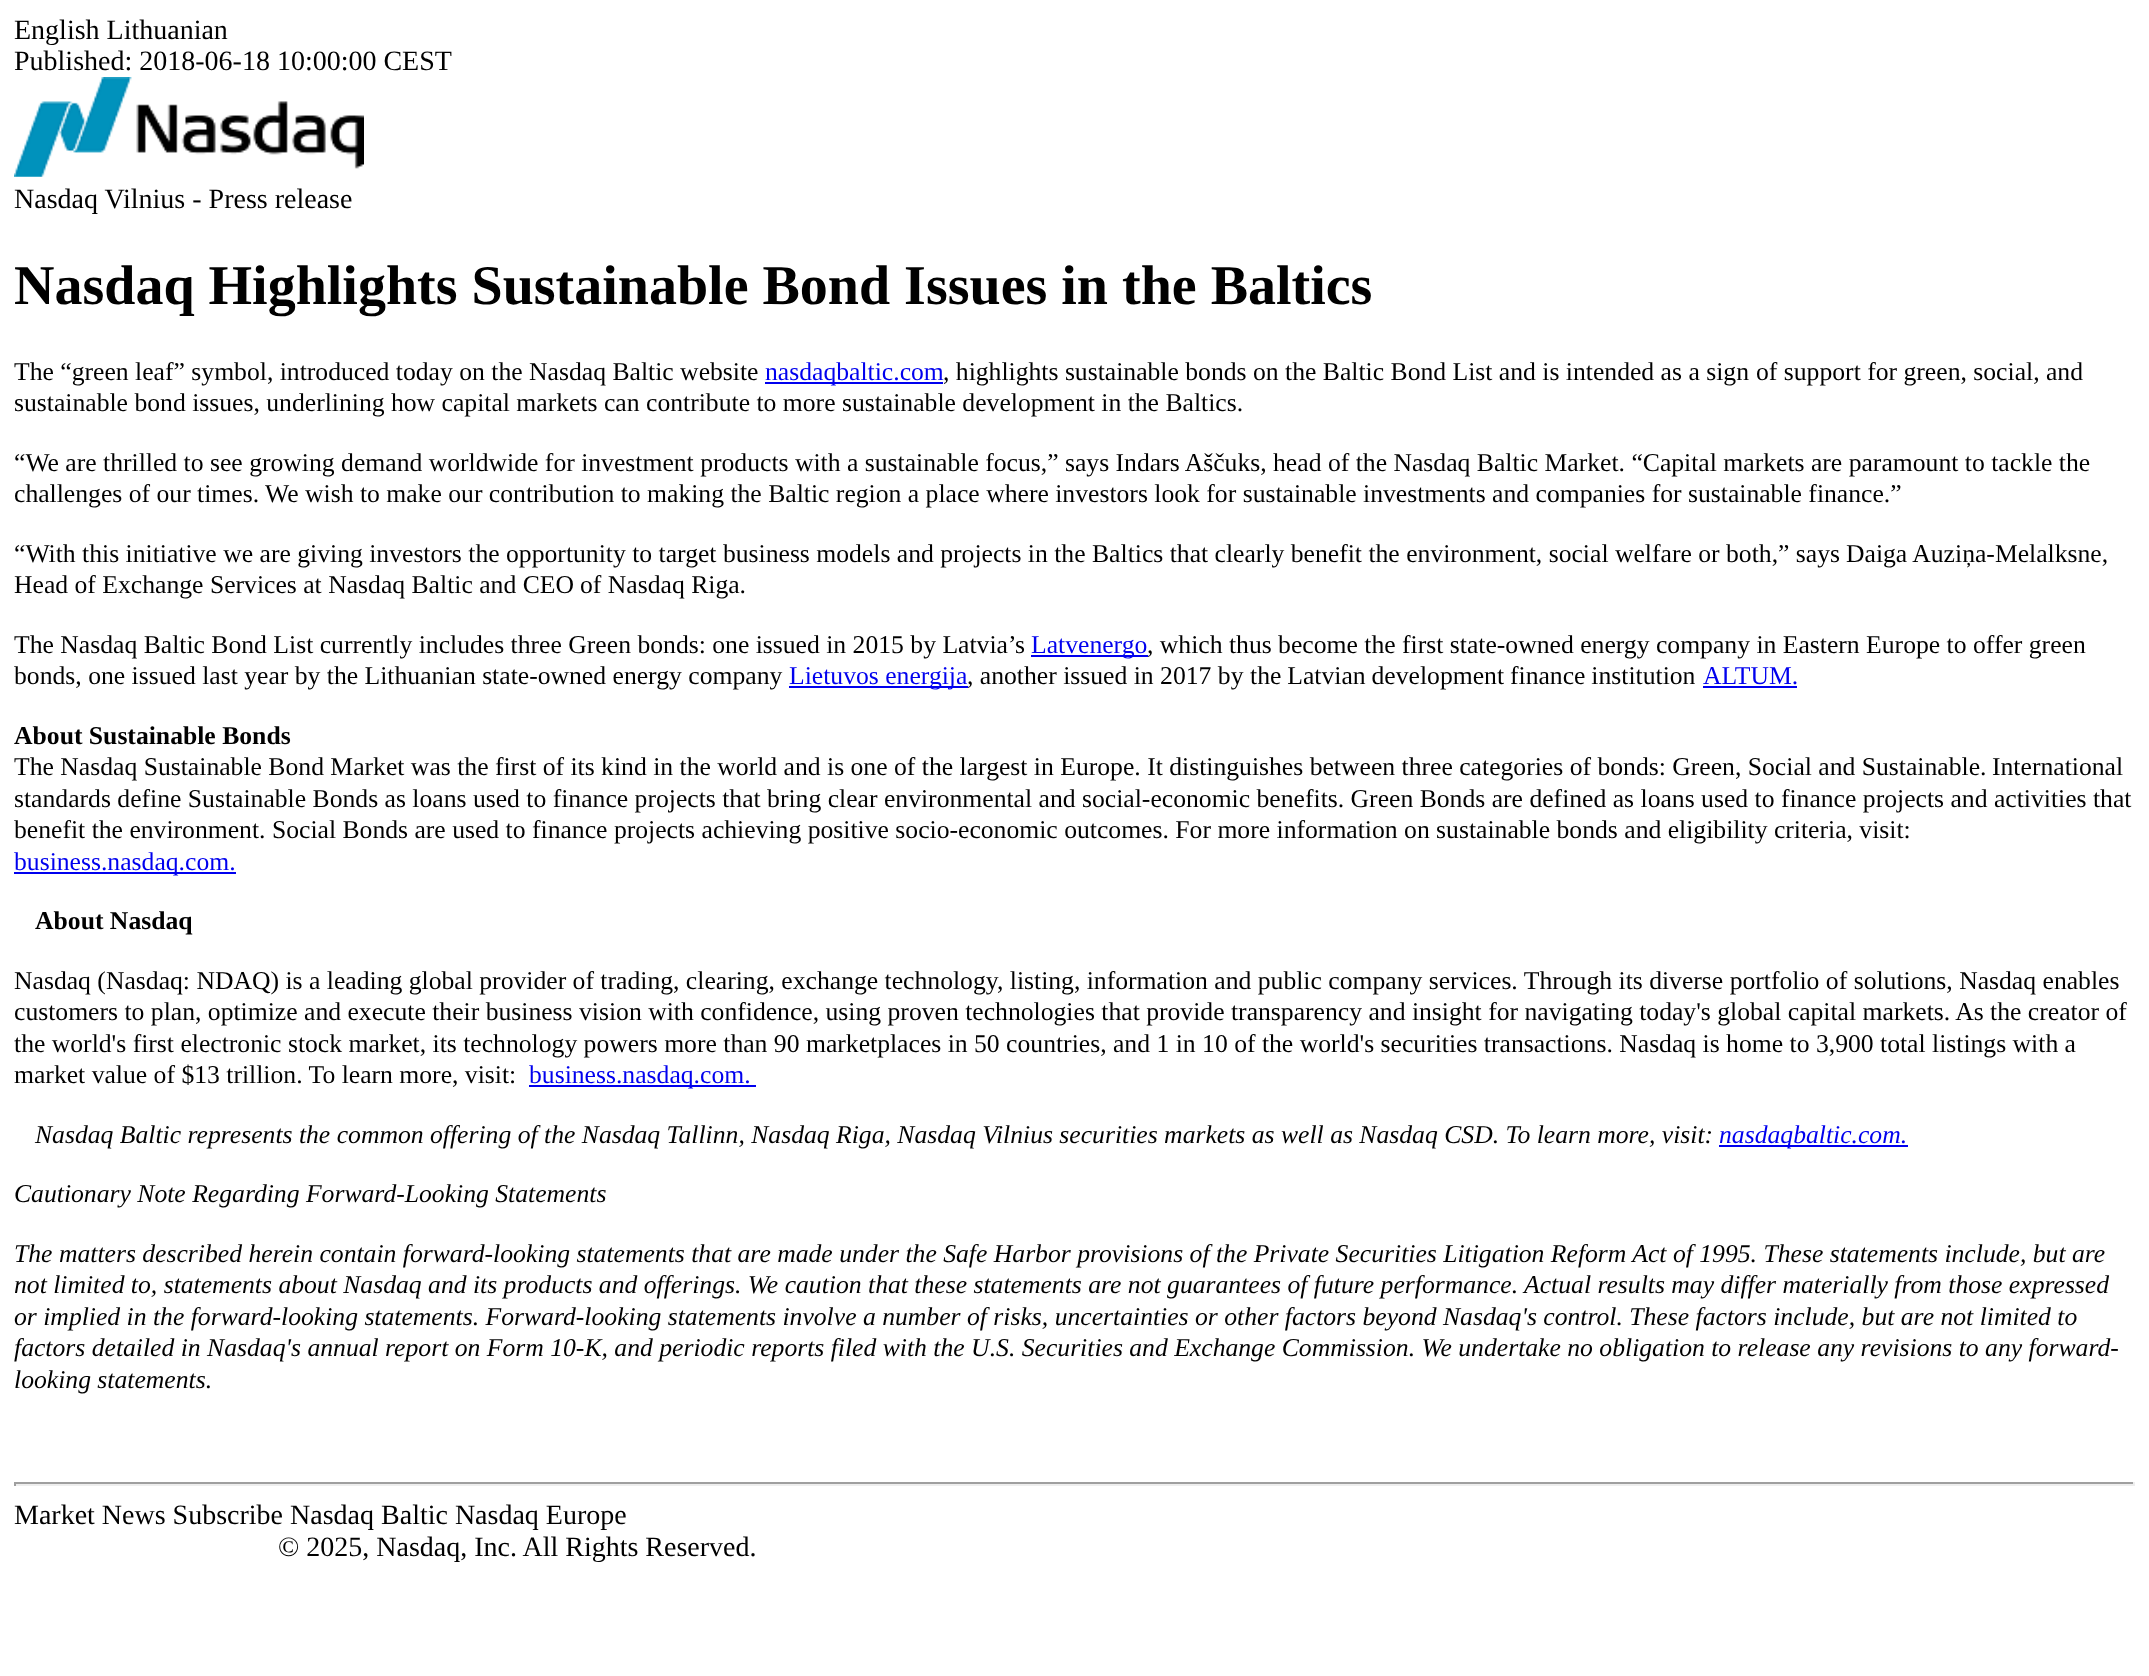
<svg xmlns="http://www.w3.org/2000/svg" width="2149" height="1676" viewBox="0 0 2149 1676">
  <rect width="100%" height="100%" fill="#ffffff"/>
  <text x="14" y="39" font-family="Liberation Serif" font-size="28" fill="#000000">English Lithuanian</text>
  <text x="14" y="70" font-family="Liberation Serif" font-size="28" fill="#000000">Published: 2018-06-18 10:00:00 CEST</text>
  <image x="14" y="77" width="350" height="100" href="img1.png"/>
  <text x="14" y="208" font-family="Liberation Serif" font-size="28" fill="#000000">Nasdaq Vilnius - Press release</text>
  <text x="14" y="304" font-family="Liberation Serif" font-size="56" font-weight="bold" fill="#000000">Nasdaq Highlights Sustainable Bond Issues in the Baltics</text>
  <text x="14" y="380" font-family="Liberation Serif" font-size="25.67" fill="#000000">The “green leaf” symbol, introduced today on the Nasdaq Baltic website</text>
  <rect x="765" y="382" width="178" height="2" fill="#0000ee"/>
  <text x="765" y="380" font-family="Liberation Serif" font-size="25.67" fill="#0000ee">nasdaqbaltic.com</text>
  <text x="943" y="380" font-family="Liberation Serif" font-size="25.67" fill="#000000">, highlights sustainable bonds on the Baltic Bond List and is intended as a sign</text>
  <text x="1756" y="380" font-family="Liberation Serif" font-size="25.67" fill="#000000">of support for green, social, and</text>
  <text x="14" y="411" font-family="Liberation Serif" font-size="25.67" fill="#000000">sustainable bond issues, underlining how capital markets can contribute to more sustainable development in the Baltics.</text>
  <text x="14" y="471" font-family="Liberation Serif" font-size="25.67" fill="#000000">“We are thrilled to see growing demand worldwide for investment products with a sustainable focus,” says Indars Aščuks, head of the Nasdaq Baltic Market. “Capital markets are paramount to tackle the</text>
  <text x="14" y="502" font-family="Liberation Serif" font-size="25.67" fill="#000000">challenges of our times. We wish to make our contribution to making the Baltic region a place where investors look for sustainable investments and companies for sustainable finance.”</text>
  <text x="14" y="562" font-family="Liberation Serif" font-size="25.67" fill="#000000">“With this initiative we are giving investors the opportunity to target business models and projects in the Baltics that clearly benefit the environment, social welfare or both,” says</text>
  <text x="1846" y="562" font-family="Liberation Serif" font-size="25.67" fill="#000000">Daiga Auziņa-Melalksne,</text>
  <text x="14" y="593" font-family="Liberation Serif" font-size="25.67" fill="#000000">Head of Exchange Services at Nasdaq Baltic and CEO</text>
  <text x="580" y="593" font-family="Liberation Serif" font-size="25.67" fill="#000000">of Nasdaq Riga.</text>
  <text x="14" y="653" font-family="Liberation Serif" font-size="25.67" fill="#000000">The Nasdaq Baltic Bond List currently includes three Green bonds: one issued in 2015 by Latvia’s</text>
  <rect x="1031" y="655" width="117" height="2" fill="#0000ee"/>
  <text x="1031" y="653" font-family="Liberation Serif" font-size="25.67" fill="#0000ee">Latvenergo</text>
  <text x="1147" y="653" font-family="Liberation Serif" font-size="25.67" fill="#000000">, which thus become the first state-owned energy company in Eastern Europe to offer green</text>
  <text x="14" y="684" font-family="Liberation Serif" font-size="25.67" fill="#000000">bonds, one issued last year by the Lithuanian state-owned energy company</text>
  <rect x="789" y="686" width="179" height="2" fill="#0000ee"/>
  <text x="789" y="684" font-family="Liberation Serif" font-size="25.67" fill="#0000ee">Lietuvos energija</text>
  <text x="967" y="684" font-family="Liberation Serif" font-size="25.67" fill="#000000">, another issued in 2017 by</text>
  <text x="1250" y="684" word-spacing="-0.5" font-family="Liberation Serif" font-size="25.67" fill="#000000">the Latvian development finance institution</text>
  <text x="1703" y="684" font-family="Liberation Serif" font-size="25.67" fill="#0000ee">ALTUM.</text>
  <rect x="1703" y="686" width="94" height="2" fill="#0000ee"/>
  <text x="14" y="744" font-family="Liberation Serif" font-size="25.67" font-weight="bold" fill="#000000">About Sustainable Bonds</text>
  <text x="14" y="775" font-family="Liberation Serif" font-size="25.67" fill="#000000">The Nasdaq Sustainable Bond Market was the first of its kind in the world and is one of the largest in Europe. It distinguishes between three categories of bonds: Green, Social and Sustainable.</text>
  <text x="1992" y="775" font-family="Liberation Serif" font-size="25.67" fill="#000000">International</text>
  <text x="14" y="807" font-family="Liberation Serif" font-size="25.67" fill="#000000">standards define Sustainable Bonds as loans used to finance projects that bring clear environmental and social-economic benefits. Green Bonds are defined as loans used to finance projects and activities that</text>
  <text x="14" y="838" font-family="Liberation Serif" font-size="25.67" fill="#000000">benefit the environment. Social Bonds are used to finance projects achieving positive socio-economic outcomes. For more information on sustainable bonds and eligibility criteria, visit:</text>
  <rect x="14" y="872" width="222" height="2" fill="#0000ee"/>
  <text x="14" y="870" font-family="Liberation Serif" font-size="25.67" fill="#0000ee">business.nasdaq.com.</text>
  <text x="35" y="929" font-family="Liberation Serif" font-size="25.67" font-weight="bold" fill="#000000">About Nasdaq</text>
  <text x="14" y="989" font-family="Liberation Serif" font-size="25.67" fill="#000000">Nasdaq (Nasdaq: NDAQ) is a leading global provider of trading, clearing, exchange technology, listing, information and public company services. Through its diverse portfolio of solutions, Nasdaq enables</text>
  <text x="14" y="1020" font-family="Liberation Serif" font-size="25.67" fill="#000000">customers to plan, optimize and execute their business vision with confidence, using proven technologies that provide transparency and insight for navigating today's global capital markets. As the creator of</text>
  <text x="14" y="1052" font-family="Liberation Serif" font-size="25.67" fill="#000000">the world's first electronic stock market, its technology powers more than 90 marketplaces in 50 countries, and 1 in 10 of the world's securities transactions. Nasdaq is home to 3,900 total listings with a</text>
  <text x="14" y="1083" font-family="Liberation Serif" font-size="25.67" fill="#000000">market value of $13 trillion. To learn more, visit:</text>
  <rect x="529" y="1085" width="227" height="2" fill="#0000ee"/>
  <text x="529" y="1083" font-family="Liberation Serif" font-size="25.67" fill="#0000ee">business.nasdaq.com.</text>
  <text x="35" y="1143" font-family="Liberation Serif" font-size="25.67" font-style="italic" fill="#000000">Nasdaq Baltic represents the common offering of the Nasdaq Tallinn, Nasdaq Riga, Nasdaq Vilnius securities markets as well as Nasdaq CSD. To learn more, visit:</text>
  <rect x="1719" y="1145" width="189" height="2" fill="#0000ee"/>
  <text x="1719" y="1143" font-family="Liberation Serif" font-size="25.67" font-style="italic" fill="#0000ee">nasdaqbaltic.com.</text>
  <text x="14" y="1202" font-family="Liberation Serif" font-size="25.67" font-style="italic" fill="#000000">Cautionary Note Regarding Forward-Looking Statements</text>
  <text x="14" y="1262" font-family="Liberation Serif" font-size="25.67" font-style="italic" fill="#000000">The matters described herein contain forward-looking statements that are made under the Safe Harbor provisions of the Private Securities Litigation Reform Act of 1995. These statements include, but are</text>
  <text x="14" y="1293" font-family="Liberation Serif" font-size="25.67" font-style="italic" fill="#000000">not limited to, statements about Nasdaq and its products and offerings. We caution that these statements are not guarantees of future performance. Actual results may differ materially from those expressed</text>
  <text x="14" y="1325" font-family="Liberation Serif" font-size="25.67" font-style="italic" fill="#000000">or implied in the forward-looking statements. Forward-looking statements involve a number of risks, uncertainties or other factors beyond Nasdaq's control. These factors include, but are not limited to</text>
  <text x="14" y="1356" font-family="Liberation Serif" font-size="25.67" font-style="italic" fill="#000000">factors detailed in Nasdaq's annual report on Form 10-K, and periodic reports filed with the U.S. Securities and Exchange Commission. We undertake no obligation to release any revisions to any forward-</text>
  <text x="14" y="1388" font-family="Liberation Serif" font-size="25.67" font-style="italic" fill="#000000">looking statements.</text>
  <rect x="14" y="1482" width="2121" height="2" fill="#9f9f9f"/>
  <rect x="2133" y="1482" width="2" height="4" fill="#eeeeee"/>
  <rect x="14" y="1484" width="2121" height="2" fill="#eeeeee"/>
  <rect x="14" y="1482" width="2" height="4" fill="#9f9f9f"/>
  <text x="14" y="1524" font-family="Liberation Serif" font-size="28" fill="#000000">Market News Subscribe Nasdaq Baltic Nasdaq Europe</text>
  <text x="278" y="1556" font-family="Liberation Serif" font-size="28" fill="#000000">© 2025, Nasdaq, Inc. All Rights Reserved.</text>
</svg>
